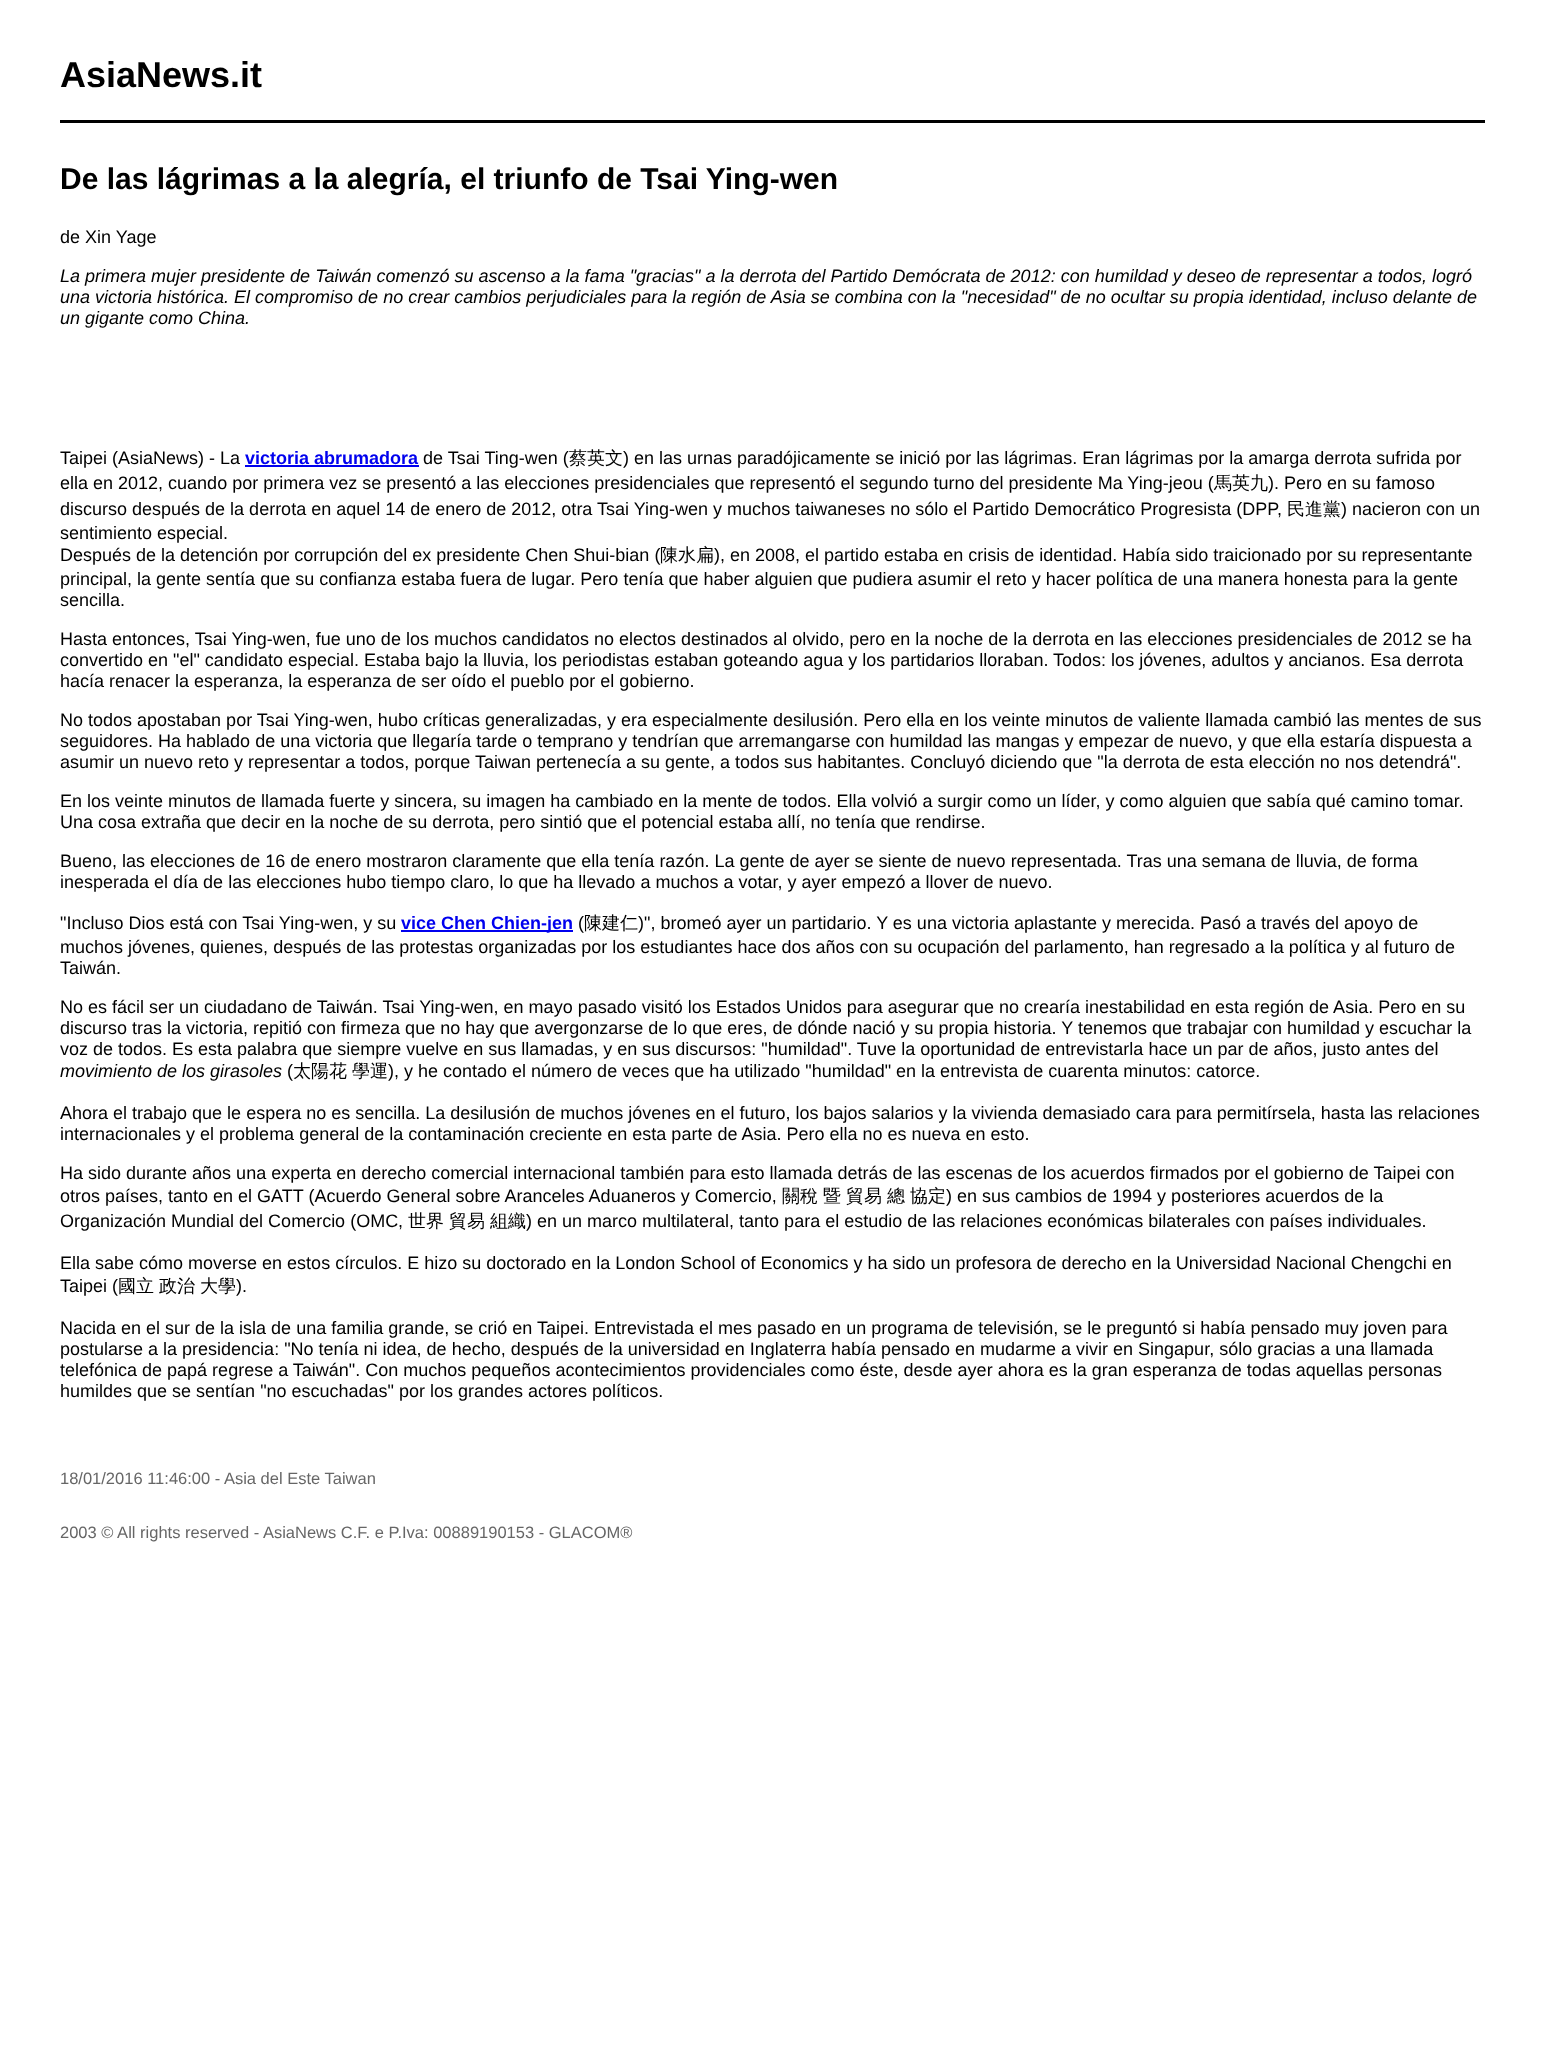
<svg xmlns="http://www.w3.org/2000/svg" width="1545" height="2052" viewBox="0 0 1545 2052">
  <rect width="100%" height="100%" fill="#ffffff"/>
  <text x="60" y="87" font-family="Liberation Sans" font-size="36" font-weight="bold" fill="#000000">AsiaNews.it</text>
  <rect x="60" y="120" width="1425" height="3" fill="#000000"/>
  <text x="60" y="189" font-family="Liberation Sans" font-size="30" font-weight="bold" fill="#000000">De las lágrimas a la alegría, el triunfo de Tsai Ying-wen</text>
  <text x="60" y="243" font-family="Liberation Sans" font-size="18" fill="#000000">de Xin Yage</text>
  <text x="60" y="282" font-family="Liberation Sans" font-size="18" font-style="italic" fill="#000000">La primera mujer presidente de Taiwán comenzó su ascenso a la fama "gracias" a la derrota del Partido Demócrata de 2012: con humildad y deseo de representar a todos, logró</text>
  <text x="60" y="303" font-family="Liberation Sans" font-size="18" font-style="italic" fill="#000000">una victoria histórica. El compromiso de no crear cambios perjudiciales para la región de Asia se combina con la "necesidad" de no ocultar su propia identidad, incluso delante de</text>
  <text x="60" y="324" font-family="Liberation Sans" font-size="18" font-style="italic" fill="#000000">un gigante como China.</text>
  <text x="60" y="464" font-family="Liberation Sans" font-size="18" fill="#000000">Taipei (AsiaNews) - La</text>
  <text x="245" y="464" font-family="Liberation Sans" font-size="18" font-weight="bold" fill="#0000ee">victoria abrumadora</text>
  <rect x="245" y="465" width="174" height="2" fill="#0000ee"/>
  <text x="423" y="464" font-family="Liberation Sans" font-size="18" fill="#000000">de Tsai Ting-wen (</text>
  <text x="569" y="464" font-family="WenQuanYi Zen Hei" font-size="18" font-weight="500" fill="#000000">蔡英文</text>
  <text x="623" y="464" font-family="Liberation Sans" font-size="18" fill="#000000">) en las urnas paradójicamente se inició por las lágrimas. Eran lágrimas por la amarga derrota sufrida por</text>
  <text x="60" y="489" font-family="Liberation Sans" font-size="18" fill="#000000">ella en 2012, cuando por primera vez se presentó a las elecciones presidenciales que representó el segundo turno del presidente Ma Ying-jeou (</text>
  <text x="1214" y="489" font-family="WenQuanYi Zen Hei" font-size="18" font-weight="500" fill="#000000">馬英九</text>
  <text x="1268" y="489" font-family="Liberation Sans" font-size="18" fill="#000000">). Pero en su famoso</text>
  <text x="60" y="515" font-family="Liberation Sans" font-size="18" fill="#000000">discurso después de la derrota en aquel 14 de enero de 2012, otra Tsai Ying-wen y muchos taiwaneses no sólo el Partido Democrático Progresista (DPP,</text>
  <text x="1287" y="515" font-family="WenQuanYi Zen Hei" font-size="18" font-weight="500" fill="#000000">民進黨</text>
  <text x="1341" y="515" font-family="Liberation Sans" font-size="18" fill="#000000">) nacieron con un</text>
  <text x="60" y="539" font-family="Liberation Sans" font-size="18" fill="#000000">sentimiento especial.</text>
  <text x="60" y="561" font-family="Liberation Sans" font-size="18" fill="#000000">Después de la detención por corrupción del ex presidente Chen Shui-bian (</text>
  <text x="660" y="561" font-family="WenQuanYi Zen Hei" font-size="18" font-weight="500" fill="#000000">陳水扁</text>
  <text x="714" y="561" font-family="Liberation Sans" font-size="18" fill="#000000">), en 2008, el partido estaba en crisis de identidad. Había sido traicionado por su representante</text>
  <text x="60" y="585" font-family="Liberation Sans" font-size="18" fill="#000000">principal, la gente sentía que su confianza estaba fuera de lugar. Pero tenía que haber alguien que pudiera asumir el reto y hacer política de una manera honesta para la gente</text>
  <text x="60" y="606" font-family="Liberation Sans" font-size="18" fill="#000000">sencilla.</text>
  <text x="60" y="645" font-family="Liberation Sans" font-size="18" fill="#000000">Hasta entonces, Tsai Ying-wen, fue uno de los muchos candidatos no electos destinados al olvido, pero en la noche de la derrota en las elecciones presidenciales de 2012 se ha</text>
  <text x="60" y="666" font-family="Liberation Sans" font-size="18" fill="#000000">convertido en "el" candidato especial. Estaba bajo la lluvia, los periodistas estaban goteando agua y los partidarios lloraban. Todos: los jóvenes, adultos y ancianos. Esa derrota</text>
  <text x="60" y="687" font-family="Liberation Sans" font-size="18" fill="#000000">hacía renacer la esperanza, la esperanza de ser oído el pueblo por el gobierno.</text>
  <text x="60" y="726" font-family="Liberation Sans" font-size="18" fill="#000000">No todos apostaban por Tsai Ying-wen, hubo críticas generalizadas, y era especialmente desilusión. Pero ella en los veinte minutos de valiente llamada cambió las mentes de sus</text>
  <text x="60" y="747" font-family="Liberation Sans" font-size="18" fill="#000000">seguidores. Ha hablado de una victoria que llegaría tarde o temprano y tendrían que arremangarse con humildad las mangas y empezar de nuevo, y que ella estaría dispuesta a</text>
  <text x="60" y="768" font-family="Liberation Sans" font-size="18" fill="#000000">asumir un nuevo reto y representar a todos, porque Taiwan pertenecía a su gente, a todos sus habitantes. Concluyó diciendo que "la derrota de esta elección no nos detendrá".</text>
  <text x="60" y="807" font-family="Liberation Sans" font-size="18" fill="#000000">En los veinte minutos de llamada fuerte y sincera, su imagen ha cambiado en la mente de todos. Ella volvió a surgir como un líder, y como alguien que sabía qué camino tomar.</text>
  <text x="60" y="828" font-family="Liberation Sans" font-size="18" fill="#000000">Una cosa extraña que decir en la noche de su derrota, pero sintió que el potencial estaba allí, no tenía que rendirse.</text>
  <text x="60" y="867" font-family="Liberation Sans" font-size="18" fill="#000000">Bueno, las elecciones de 16 de enero mostraron claramente que ella tenía razón. La gente de ayer se siente de nuevo representada. Tras una semana de lluvia, de forma</text>
  <text x="60" y="888" font-family="Liberation Sans" font-size="18" fill="#000000">inesperada el día de las elecciones hubo tiempo claro, lo que ha llevado a muchos a votar, y ayer empezó a llover de nuevo.</text>
  <text x="60" y="929" font-family="Liberation Sans" font-size="18" fill="#000000">"Incluso Dios está con Tsai Ying-wen, y su</text>
  <rect x="401" y="930" width="172" height="2" fill="#0000ee"/>
  <text x="401" y="929" font-family="Liberation Sans" font-size="18" font-weight="bold" fill="#0000ee">vice Chen Chien-jen</text>
  <text x="578" y="929" font-family="Liberation Sans" font-size="18" fill="#000000">(</text>
  <text x="584" y="929" font-family="WenQuanYi Zen Hei" font-size="18" font-weight="500" fill="#000000">陳建仁</text>
  <text x="638" y="929" font-family="Liberation Sans" font-size="18" fill="#000000">)", bromeó ayer un partidario. Y es una victoria aplastante y merecida. Pasó a través del apoyo de</text>
  <text x="60" y="953" font-family="Liberation Sans" font-size="18" fill="#000000">muchos jóvenes, quienes, después de las protestas organizadas por los estudiantes hace dos años con su ocupación del parlamento, han regresado a la política y al futuro de</text>
  <text x="60" y="974" font-family="Liberation Sans" font-size="18" fill="#000000">Taiwán.</text>
  <text x="60" y="1013" font-family="Liberation Sans" font-size="18" fill="#000000">No es fácil ser un ciudadano de Taiwán. Tsai Ying-wen, en mayo pasado visitó los Estados Unidos para asegurar que no crearía inestabilidad en esta región de Asia. Pero en su</text>
  <text x="60" y="1034" font-family="Liberation Sans" font-size="18" fill="#000000">discurso tras la victoria, repitió con firmeza que no hay que avergonzarse de lo que eres, de dónde nació y su propia historia. Y tenemos que trabajar con humildad y escuchar la</text>
  <text x="60" y="1055" font-family="Liberation Sans" font-size="18" fill="#000000">voz de todos. Es esta palabra que siempre vuelve en sus llamadas, y en sus discursos: "humildad". Tuve la oportunidad de entrevistarla hace un par de años, justo antes del</text>
  <text x="60" y="1077" font-family="Liberation Sans" font-size="18" font-style="italic" fill="#000000">movimiento de los girasoles</text>
  <text x="287" y="1077" font-family="Liberation Sans" font-size="18" fill="#000000">(</text>
  <text x="293" y="1077" font-family="WenQuanYi Zen Hei" font-size="18" font-weight="500" fill="#000000">太陽花</text>
  <text x="352" y="1077" font-family="WenQuanYi Zen Hei" font-size="18" font-weight="500" fill="#000000">學運</text>
  <text x="388" y="1077" font-family="Liberation Sans" font-size="18" fill="#000000">), y he contado el número de veces que ha utilizado "humildad" en la entrevista de cuarenta minutos: catorce.</text>
  <text x="60" y="1119" font-family="Liberation Sans" font-size="18" fill="#000000">Ahora el trabajo que le espera no es sencilla. La desilusión de muchos jóvenes en el futuro, los bajos salarios y la vivienda demasiado cara para permitírsela, hasta las relaciones</text>
  <text x="60" y="1140" font-family="Liberation Sans" font-size="18" fill="#000000">internacionales y el problema general de la contaminación creciente en esta parte de Asia. Pero ella no es nueva en esto.</text>
  <text x="60" y="1179" font-family="Liberation Sans" font-size="18" fill="#000000">Ha sido durante años una experta en derecho comercial internacional también para esto llamada detrás de las escenas de los acuerdos firmados por el gobierno de Taipei con</text>
  <text x="60" y="1202" font-family="Liberation Sans" font-size="18" fill="#000000">otros países, tanto en el GATT (Acuerdo General sobre Aranceles Aduaneros y Comercio,</text>
  <text x="782" y="1202" font-family="WenQuanYi Zen Hei" font-size="18" font-weight="500" fill="#000000">關稅</text>
  <text x="823" y="1202" font-family="WenQuanYi Zen Hei" font-size="18" font-weight="500" fill="#000000">暨</text>
  <text x="846" y="1202" font-family="WenQuanYi Zen Hei" font-size="18" font-weight="500" fill="#000000">貿易</text>
  <text x="887" y="1202" font-family="WenQuanYi Zen Hei" font-size="18" font-weight="500" fill="#000000">總</text>
  <text x="910" y="1202" font-family="WenQuanYi Zen Hei" font-size="18" font-weight="500" fill="#000000">協定</text>
  <text x="946" y="1202" font-family="Liberation Sans" font-size="18" fill="#000000">) en sus cambios de 1994 y posteriores acuerdos de la</text>
  <text x="60" y="1227" font-family="Liberation Sans" font-size="18" fill="#000000">Organización Mundial del Comercio (OMC,</text>
  <text x="408" y="1227" font-family="WenQuanYi Zen Hei" font-size="18" font-weight="500" fill="#000000">世界</text>
  <text x="449" y="1227" font-family="WenQuanYi Zen Hei" font-size="18" font-weight="500" fill="#000000">貿易</text>
  <text x="490" y="1227" font-family="WenQuanYi Zen Hei" font-size="18" font-weight="500" fill="#000000">組織</text>
  <text x="526" y="1227" font-family="Liberation Sans" font-size="18" fill="#000000">) en un marco multilateral, tanto para el estudio de las relaciones económicas bilaterales con países individuales.</text>
  <text x="60" y="1269" font-family="Liberation Sans" font-size="18" fill="#000000">Ella sabe cómo moverse en estos círculos. E hizo su doctorado en la London School of Economics y ha sido un profesora de derecho en la Universidad Nacional Chengchi en</text>
  <text x="60" y="1292" font-family="Liberation Sans" font-size="18" fill="#000000">Taipei (</text>
  <text x="118" y="1292" font-family="WenQuanYi Zen Hei" font-size="18" font-weight="500" fill="#000000">國立</text>
  <text x="159" y="1292" font-family="WenQuanYi Zen Hei" font-size="18" font-weight="500" fill="#000000">政治</text>
  <text x="200" y="1292" font-family="WenQuanYi Zen Hei" font-size="18" font-weight="500" fill="#000000">大學</text>
  <text x="236" y="1292" font-family="Liberation Sans" font-size="18" fill="#000000">).</text>
  <text x="60" y="1334" font-family="Liberation Sans" font-size="18" fill="#000000">Nacida en el sur de la isla de una familia grande, se crió en Taipei. Entrevistada el mes pasado en un programa de televisión, se le preguntó si había pensado muy joven para</text>
  <text x="60" y="1355" font-family="Liberation Sans" font-size="18" fill="#000000">postularse a la presidencia: "No tenía ni idea, de hecho, después de la universidad en Inglaterra había pensado en mudarme a vivir en Singapur, sólo gracias a una llamada</text>
  <text x="60" y="1376" font-family="Liberation Sans" font-size="18" fill="#000000">telefónica de papá regrese a Taiwán". Con muchos pequeños acontecimientos providenciales como éste, desde ayer ahora es la gran esperanza de todas aquellas personas</text>
  <text x="60" y="1397" font-family="Liberation Sans" font-size="18" fill="#000000">humildes que se sentían "no escuchadas" por los grandes actores políticos.</text>
  <text x="60" y="1484" font-family="Liberation Sans" font-size="16.5" fill="#666666">18/01/2016 11:46:00 - Asia del Este Taiwan</text>
  <text x="60" y="1538" font-family="Liberation Sans" font-size="16.5" fill="#666666">2003 © All rights reserved - AsiaNews C.F. e P.Iva: 00889190153 - GLACOM®</text>
</svg>
